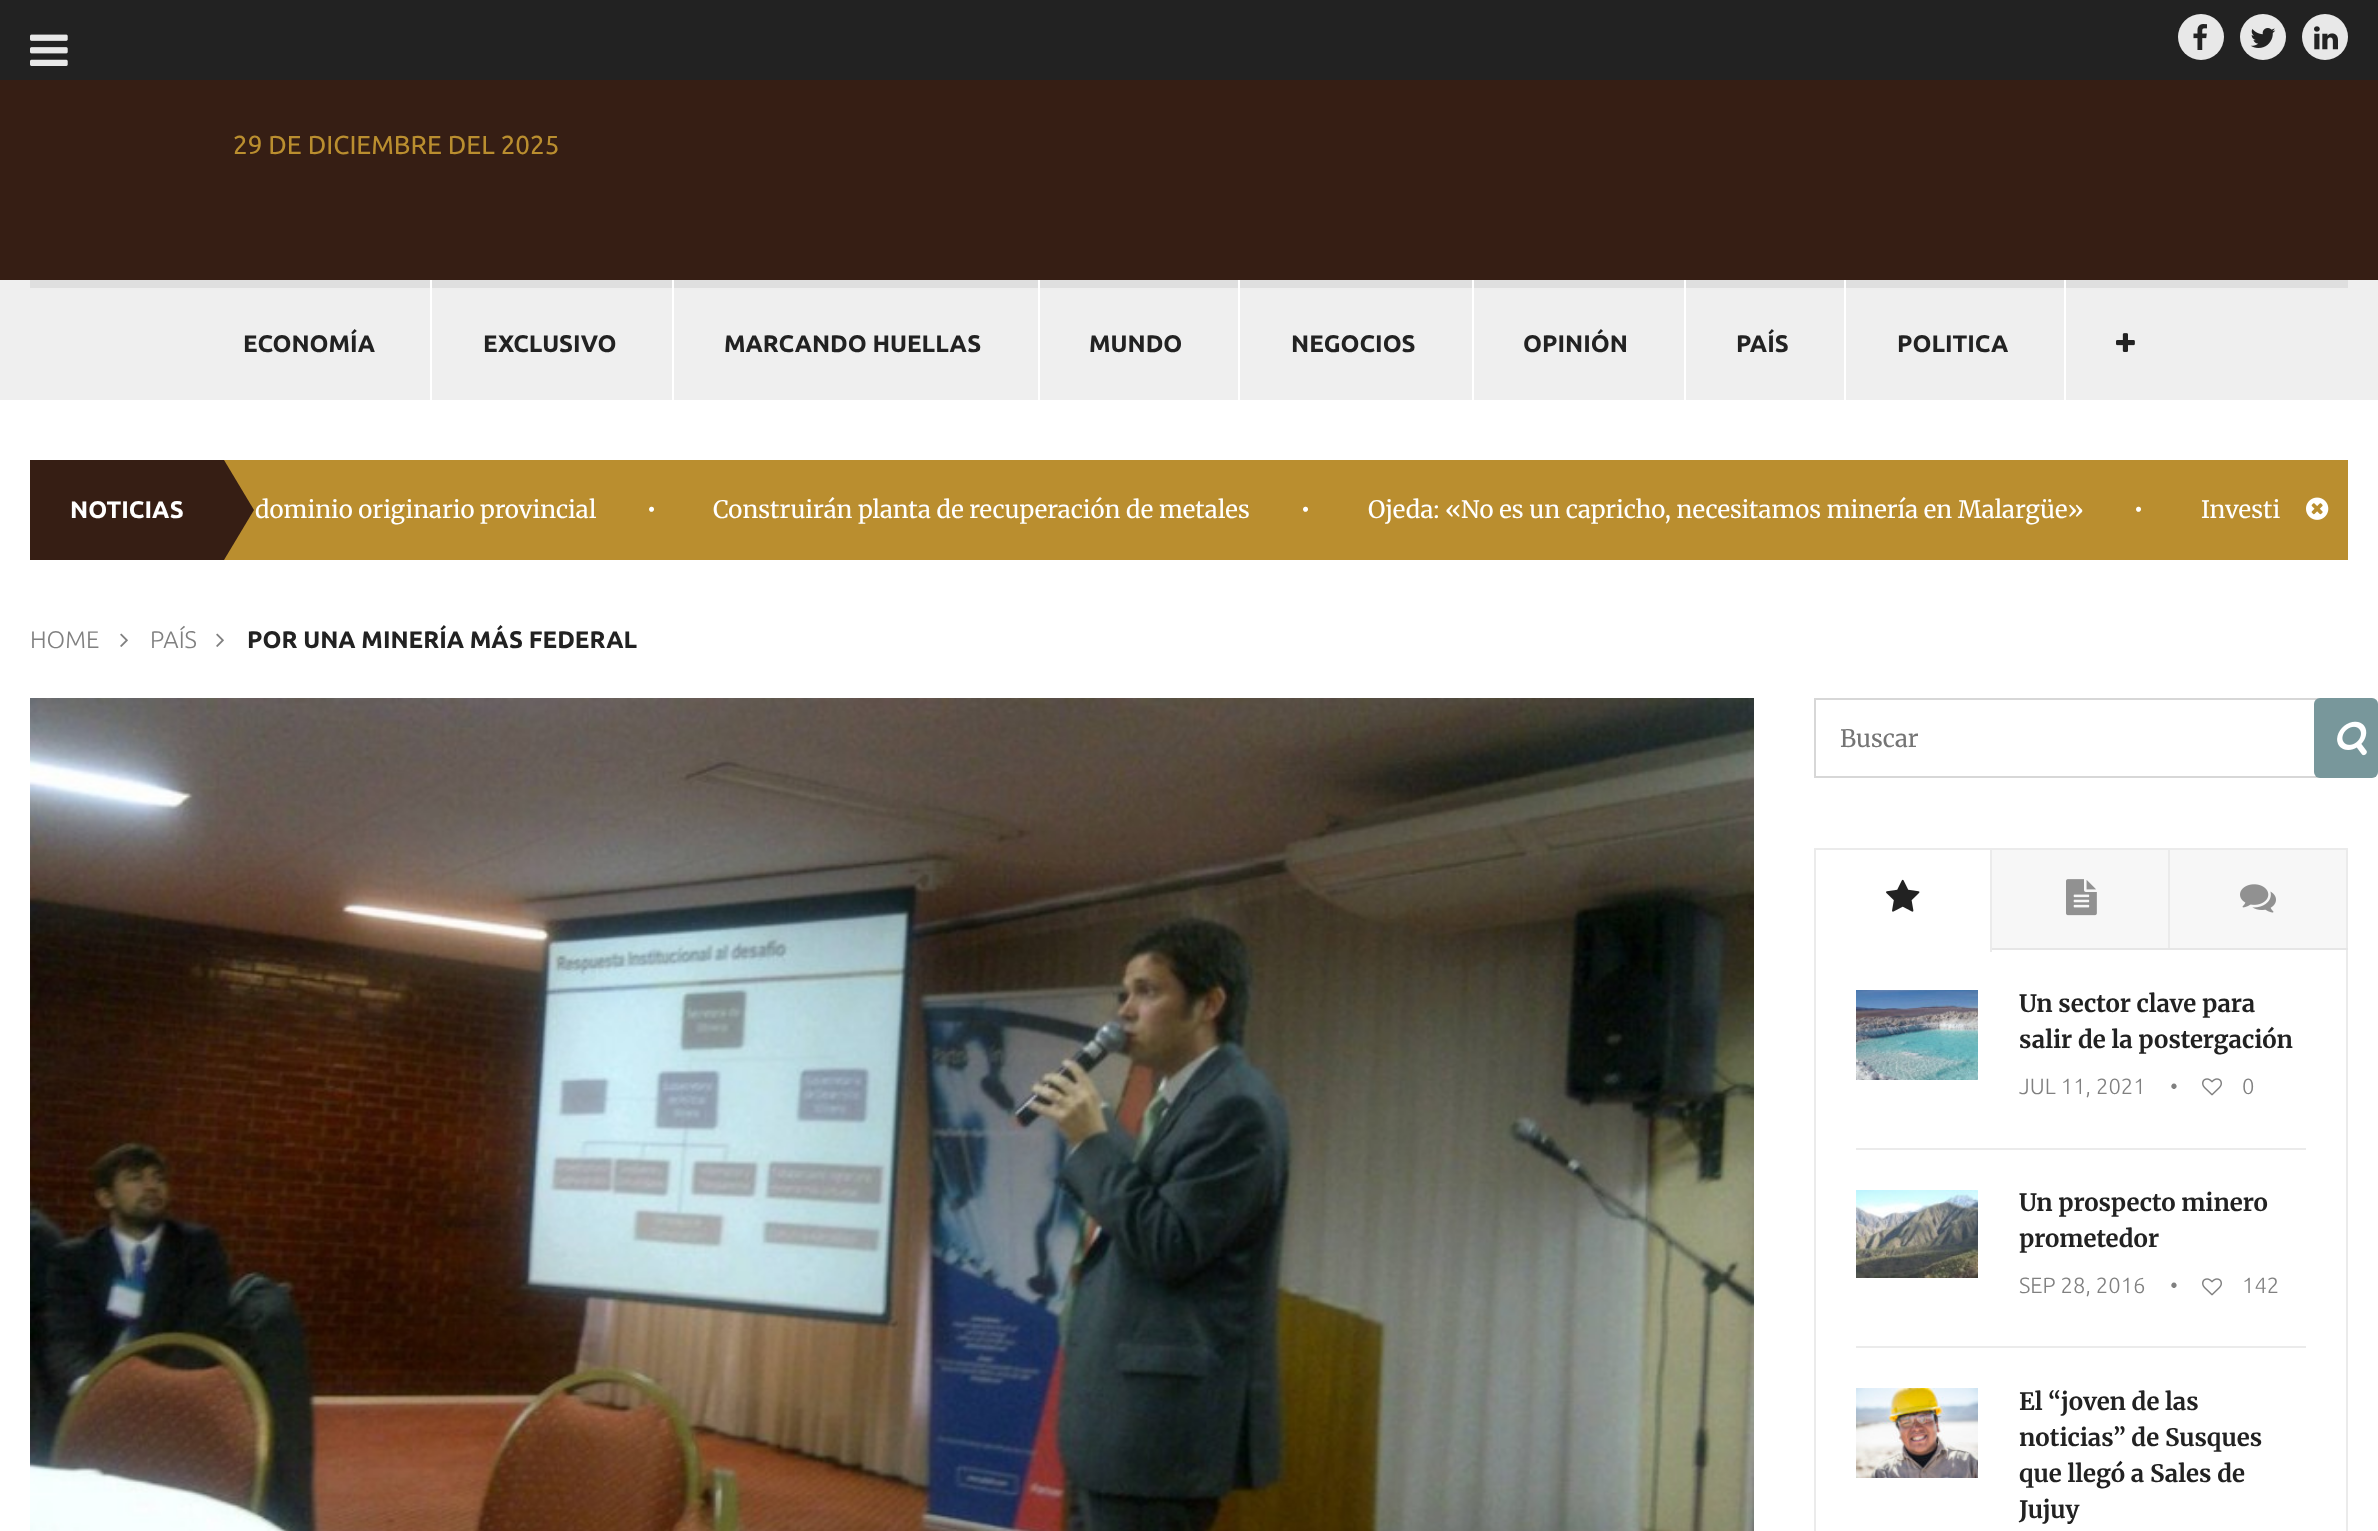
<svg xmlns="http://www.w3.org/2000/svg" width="2378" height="1531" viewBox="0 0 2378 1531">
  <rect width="100%" height="100%" fill="#ffffff"/>
  <rect x="0" y="0" width="2378" height="80" fill="#222222"/>
  <image x="30" y="34" width="38" height="32" href="img1.png"/>
  <circle cx="2201" cy="37" r="23" fill="#e8e8e8"/>
  <image x="2193" y="24" width="14" height="26" href="img2.png"/>
  <circle cx="2263" cy="37" r="23" fill="#e8e8e8"/>
  <image x="2250" y="28" width="26" height="20" href="img3.png"/>
  <circle cx="2325" cy="37" r="23" fill="#e8e8e8"/>
  <image x="2314" y="26" width="24" height="24" href="img4.png"/>
  <rect x="0" y="80" width="2378" height="200" fill="#361e14"/>
  <text x="233" y="154" font-family="Ubuntu" font-size="26" fill="#ba8e2f">29 DE DICIEMBRE DEL 2025</text>
  <rect x="0" y="280" width="2378" height="120" fill="#efefef"/>
  <rect x="30" y="280" width="2318" height="8" fill="#dfdfdf"/>
  <text x="243" y="352" font-family="Ubuntu" font-size="24" font-weight="bold" fill="#222222">ECONOMÍA</text>
  <rect x="430" y="280" width="2" height="120" fill="#ffffff"/>
  <text x="483" y="352" font-family="Ubuntu" font-size="24" font-weight="bold" fill="#222222">EXCLUSIVO</text>
  <rect x="672" y="280" width="2" height="120" fill="#ffffff"/>
  <text x="724" y="352" font-family="Ubuntu" font-size="24" font-weight="bold" fill="#222222">MARCANDO HUELLAS</text>
  <rect x="1038" y="280" width="2" height="120" fill="#ffffff"/>
  <text x="1089" y="352" font-family="Ubuntu" font-size="24" font-weight="bold" fill="#222222">MUNDO</text>
  <rect x="1238" y="280" width="2" height="120" fill="#ffffff"/>
  <text x="1291" y="352" font-family="Ubuntu" font-size="24" font-weight="bold" fill="#222222">NEGOCIOS</text>
  <rect x="1472" y="280" width="2" height="120" fill="#ffffff"/>
  <text x="1523" y="352" font-family="Ubuntu" font-size="24" font-weight="bold" fill="#222222">OPINIÓN</text>
  <rect x="1684" y="280" width="2" height="120" fill="#ffffff"/>
  <text x="1736" y="352" font-family="Ubuntu" font-size="24" font-weight="bold" fill="#222222">PAÍS</text>
  <rect x="1844" y="280" width="2" height="120" fill="#ffffff"/>
  <text x="1897" y="352" font-family="Ubuntu" font-size="24" font-weight="bold" fill="#222222">POLITICA</text>
  <rect x="2064" y="280" width="2" height="120" fill="#ffffff"/>
  <image x="2116" y="333" width="19" height="19" href="img5.png"/>
  <rect x="224" y="460" width="2124" height="100" fill="#ba8e2f"/>
  <rect x="30" y="460" width="194" height="100" fill="#361e14"/>
  <text x="70" y="518" font-family="Ubuntu" font-size="24" font-weight="bold" fill="#ffffff">NOTICIAS</text>
  <path d="M224 560V460L254 510Z" fill="#361e14"/>
  <text x="255" y="518" font-family="Merriweather" font-size="24" fill="#ffffff">dominio originario provincial</text>
  <text x="646" y="518" font-family="Merriweather" font-size="26" fill="#ffffff">•</text>
  <text x="713" y="518" font-family="Merriweather" font-size="24" fill="#ffffff">Construirán planta de recuperación de metales</text>
  <text x="1300" y="518" font-family="Merriweather" font-size="26" fill="#ffffff">•</text>
  <text x="1368" y="518" font-family="Merriweather" font-size="24" fill="#ffffff">Ojeda: «No es un capricho, necesitamos minería en Malargüe»</text>
  <text x="2133" y="518" font-family="Merriweather" font-size="26" fill="#ffffff">•</text>
  <text x="2201" y="518" font-family="Merriweather" font-size="24" fill="#ffffff">Investi</text>
  <image x="2306" y="497" width="23" height="23" href="img6.png"/>
  <text x="30" y="648" font-family="Ubuntu" font-size="24" font-weight="300" fill="#808080">HOME</text>
  <image x="120" y="633" width="8" height="14" href="img7.png"/>
  <text x="150" y="648" font-family="Ubuntu" font-size="24" font-weight="300" fill="#808080">PAÍS</text>
  <image x="216" y="633" width="8" height="14" href="img7.png"/>
  <text x="247" y="648" font-family="Ubuntu" font-size="24" font-weight="bold" fill="#222222">POR UNA MINERÍA MÁS FEDERAL</text>
  <image x="30" y="698" width="1724" height="833" href="img8.png"/>
  <rect x="1815" y="699" width="532" height="78" fill="none" stroke="#d7d7d7" stroke-width="2"/>
  <text x="1840" y="747" font-family="Merriweather" font-size="24" fill="#757575">Buscar</text>
  <rect x="2314" y="698" width="64" height="80" rx="6" fill="#78979b"/>
  <image x="2337" y="721" width="30" height="35" href="img9.png"/>
  <rect x="1992" y="850" width="354" height="98" fill="#f7f7f7"/>
  <rect x="1992" y="948" width="356" height="2" fill="#e6e6e6"/>
  <rect x="1814" y="848" width="2" height="683" fill="#ebebeb"/>
  <rect x="1990" y="848" width="2" height="104" fill="#ebebeb"/>
  <rect x="1816" y="848" width="174" height="2" fill="#ebebeb"/>
  <image x="1886" y="879" width="34" height="33" href="img10.png"/>
  <rect x="2168" y="848" width="2" height="100" fill="#ebebeb"/>
  <rect x="1992" y="848" width="176" height="2" fill="#ebebeb"/>
  <image x="2066" y="879" width="31" height="37" href="img11.png"/>
  <rect x="2346" y="848" width="2" height="100" fill="#ebebeb"/>
  <rect x="2170" y="848" width="176" height="2" fill="#ebebeb"/>
  <image x="2240" y="884" width="36" height="29" href="img12.png"/>
  <rect x="2346" y="950" width="2" height="581" fill="#ebebeb"/>
  <rect x="1856" y="1148" width="450" height="2" fill="#ebebeb"/>
  <image x="1856" y="990" width="122" height="90" href="img13.png"/>
  <text x="2019" y="1012" font-family="Merriweather" font-size="24" font-weight="bold" fill="#222222">Un sector clave para</text>
  <text x="2019" y="1048" font-family="Merriweather" font-size="24" font-weight="bold" fill="#222222">salir de la postergación</text>
  <text x="2019" y="1094" font-family="Ubuntu" font-size="22" font-weight="300" fill="#808080">JUL 11, 2021</text>
  <text x="2170" y="1094" font-family="Ubuntu" font-size="22" font-weight="300" fill="#808080">•</text>
  <image x="2202" y="1078" width="20" height="18" href="img14.png"/>
  <text x="2242" y="1094" font-family="Ubuntu" font-size="22" font-weight="300" fill="#808080">0</text>
  <rect x="1856" y="1346" width="450" height="2" fill="#ebebeb"/>
  <image x="1856" y="1190" width="122" height="88" href="img15.png"/>
  <text x="2019" y="1211" font-family="Merriweather" font-size="24" font-weight="bold" fill="#222222">Un prospecto minero</text>
  <text x="2019" y="1247" font-family="Merriweather" font-size="24" font-weight="bold" fill="#222222">prometedor</text>
  <text x="2019" y="1293" font-family="Ubuntu" font-size="22" font-weight="300" fill="#808080">SEP 28, 2016</text>
  <text x="2170" y="1293" font-family="Ubuntu" font-size="22" font-weight="300" fill="#808080">•</text>
  <image x="2202" y="1278" width="20" height="18" href="img14.png"/>
  <text x="2242" y="1293" font-family="Ubuntu" font-size="22" font-weight="300" fill="#808080">142</text>
  <image x="1856" y="1388" width="122" height="90" href="img16.png"/>
  <text x="2019" y="1410" font-family="Merriweather" font-size="24" font-weight="bold" fill="#222222">El “joven de las</text>
  <text x="2019" y="1446" font-family="Merriweather" font-size="24" font-weight="bold" fill="#222222">noticias” de Susques</text>
  <text x="2019" y="1482" font-family="Merriweather" font-size="24" font-weight="bold" fill="#222222">que llegó a Sales de</text>
  <text x="2019" y="1518" font-family="Merriweather" font-size="24" font-weight="bold" fill="#222222">Jujuy</text>
</svg>
